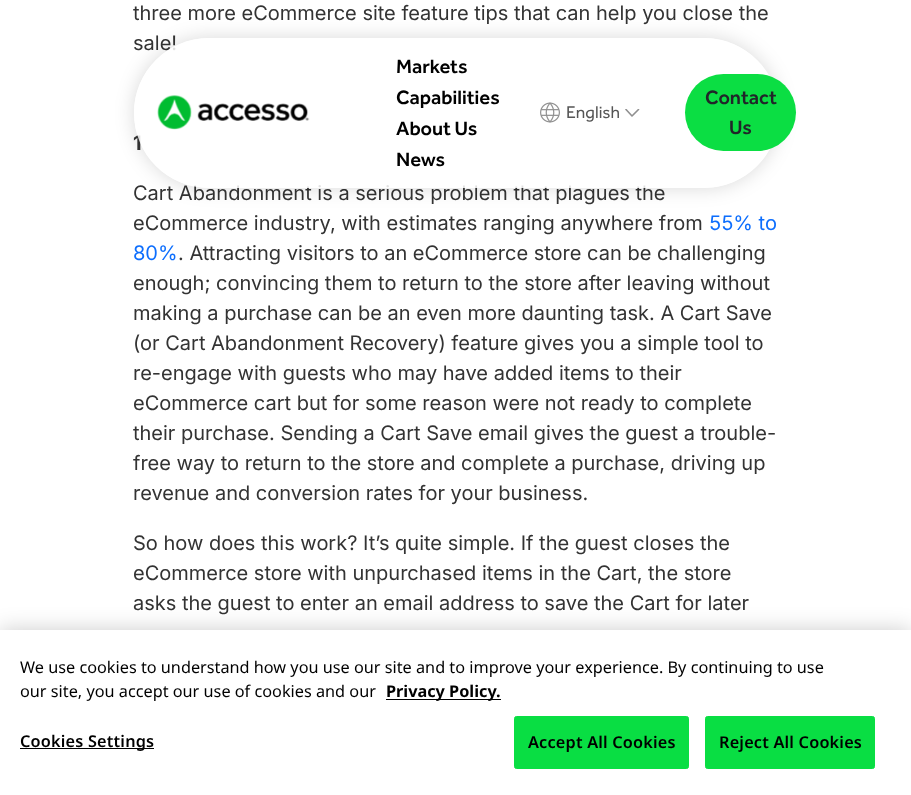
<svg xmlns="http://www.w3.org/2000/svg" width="911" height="795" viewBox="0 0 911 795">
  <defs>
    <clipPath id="clip1"><path d="M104 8H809V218H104ZM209 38H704C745.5 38 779 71.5 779 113C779 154.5 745.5 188 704 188H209C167.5 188 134 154.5 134 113C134 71.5 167.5 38 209 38Z" clip-rule="evenodd"/></clipPath>
    <filter id="blur1" x="-50%" y="-200%" width="200%" height="500%"><feGaussianBlur stdDeviation="9.5"/></filter>
    <clipPath id="clip2"><rect x="625" y="109" width="15" height="9"/></clipPath>
    <filter id="blur2" x="-50%" y="-200%" width="200%" height="500%"><feGaussianBlur stdDeviation="11"/></filter>
  </defs>
  <rect width="100%" height="100%" fill="#ffffff"/>
  <text x="133" y="20" font-family="Inter" font-size="20" fill="#333333">three more eCommerce site feature tips that can help you close the</text>
  <text x="133" y="50" font-family="Inter" font-size="20" fill="#333333">sale!</text>
  <text x="133" y="150" font-family="Inter" font-size="20" font-weight="bold" fill="#333333">1</text>
  <text x="133" y="200" font-family="Inter" font-size="20" fill="#333333">Cart Abandonment is a serious problem that plagues the</text>
  <text x="133" y="230" font-family="Inter" font-size="20" fill="#333333">eCommerce industry, with estimates ranging anywhere from</text>
  <text x="709" y="230" font-family="Inter" font-size="20" fill="#0d6efd">55% to</text>
  <text x="133" y="260" font-family="Inter" font-size="20" fill="#0d6efd">80%</text>
  <text x="178" y="260" font-family="Inter" font-size="20" fill="#333333">. Attracting visitors to an eCommerce store can be challenging</text>
  <text x="133" y="290" font-family="Inter" font-size="20" fill="#333333">enough; convincing them to return to the store after leaving without</text>
  <text x="133" y="320" font-family="Inter" font-size="20" fill="#333333">making a purchase can be an even more daunting task. A Cart Save</text>
  <text x="133" y="350" font-family="Inter" font-size="20" fill="#333333">(or Cart Abandonment Recovery) feature gives you a simple tool to</text>
  <text x="133" y="380" font-family="Inter" font-size="20" fill="#333333">re-engage with guests who may have added items to their</text>
  <text x="133" y="410" font-family="Inter" font-size="20" fill="#333333">eCommerce cart but for some reason were not ready to complete</text>
  <text x="133" y="440" font-family="Inter" font-size="20" fill="#333333">their purchase. Sending a Cart Save email gives the guest a trouble-</text>
  <text x="133" y="470" font-family="Inter" font-size="20" fill="#333333">free way to return to the store and complete a purchase, driving up</text>
  <text x="133" y="500" font-family="Inter" font-size="20" fill="#333333">revenue and conversion rates for your business.</text>
  <text x="133" y="550" font-family="Inter" font-size="20" fill="#333333">So how does this work? It’s quite simple. If the guest closes the</text>
  <text x="133" y="580" font-family="Inter" font-size="20" fill="#333333">eCommerce store with unpurchased items in the Cart, the store</text>
  <text x="133" y="610" font-family="Inter" font-size="20" fill="#333333">asks the guest to enter an email address to save the Cart for later</text>
  <g clip-path="url(#clip1)">
    <rect x="134" y="38" width="645" height="150" rx="75" fill="#000000" fill-opacity="0.15" filter="url(#blur1)"/>
  </g>
  <rect x="134" y="38" width="645" height="150" rx="75" fill="#ffffff" fill-opacity="0.85"/>
  <image x="157" y="95" width="153" height="35" href="img1.png"/>
  <text x="396" y="73" font-family="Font" font-size="20" font-weight="600" fill="#000000">Markets</text>
  <text x="396" y="104" font-family="Font" font-size="20" font-weight="600" fill="#000000">Capabilities</text>
  <text x="396" y="135" font-family="Font" font-size="20" font-weight="600" fill="#000000">About Us</text>
  <text x="396" y="166" font-family="Font" font-size="20" font-weight="600" fill="#000000">News</text>
  <image x="540" y="102" width="20" height="21" href="img2.png"/>
  <text x="566" y="118" font-family="Font" font-size="17.5" fill="#555555">English</text>
  <g clip-path="url(#clip2)">
    <path d="M626 109.5L632 116L638.5 109.5" fill="none" stroke="#909090" stroke-width="1.6" stroke-linecap="round" stroke-linejoin="round"/>
  </g>
  <rect x="685" y="74" width="111" height="77" rx="38.5" fill="#0bde43"/>
  <text x="705" y="104" font-family="Font" font-size="20" font-weight="600" fill="#212529">Contact</text>
  <text x="729" y="134" font-family="Font" font-size="20" font-weight="600" fill="#212529">Us</text>
  <rect x="0" y="630" width="911" height="165" fill="#000000" fill-opacity="0.2" filter="url(#blur2)"/>
  <rect x="0" y="630" width="911" height="165" fill="#ffffff"/>
  <text x="20" y="673" font-family="Noto Sans" font-size="16.25" fill="#000000">We use cookies to understand how you use our site and to improve your experience. By continuing to use</text>
  <text x="20" y="697" font-family="Noto Sans" font-size="16.25" fill="#000000">our site, you accept our use of cookies and our</text>
  <rect x="386" y="699" width="115" height="1" fill="#000000"/>
  <text x="386" y="697" font-family="Noto Sans" font-size="16.25" font-weight="bold" fill="#000000">Privacy Policy.</text>
  <rect x="20" y="748" width="134" height="1" fill="#000000"/>
  <text x="20" y="747" font-family="Noto Sans" font-size="16.25" font-weight="600" letter-spacing="0.2" fill="#000000">Cookies Settings</text>
  <rect x="514.5" y="716.5" width="174" height="52" rx="2" fill="#09de43" stroke="#09de43"/>
  <text x="528" y="748" font-family="Noto Sans" font-size="16.25" font-weight="600" letter-spacing="0.2" fill="#000000">Accept All Cookies</text>
  <rect x="705.5" y="716.5" width="169" height="52" rx="2" fill="#09de43" stroke="#09de43"/>
  <text x="719" y="748" font-family="Noto Sans" font-size="16.25" font-weight="600" letter-spacing="0.2" fill="#000000">Reject All Cookies</text>
</svg>
